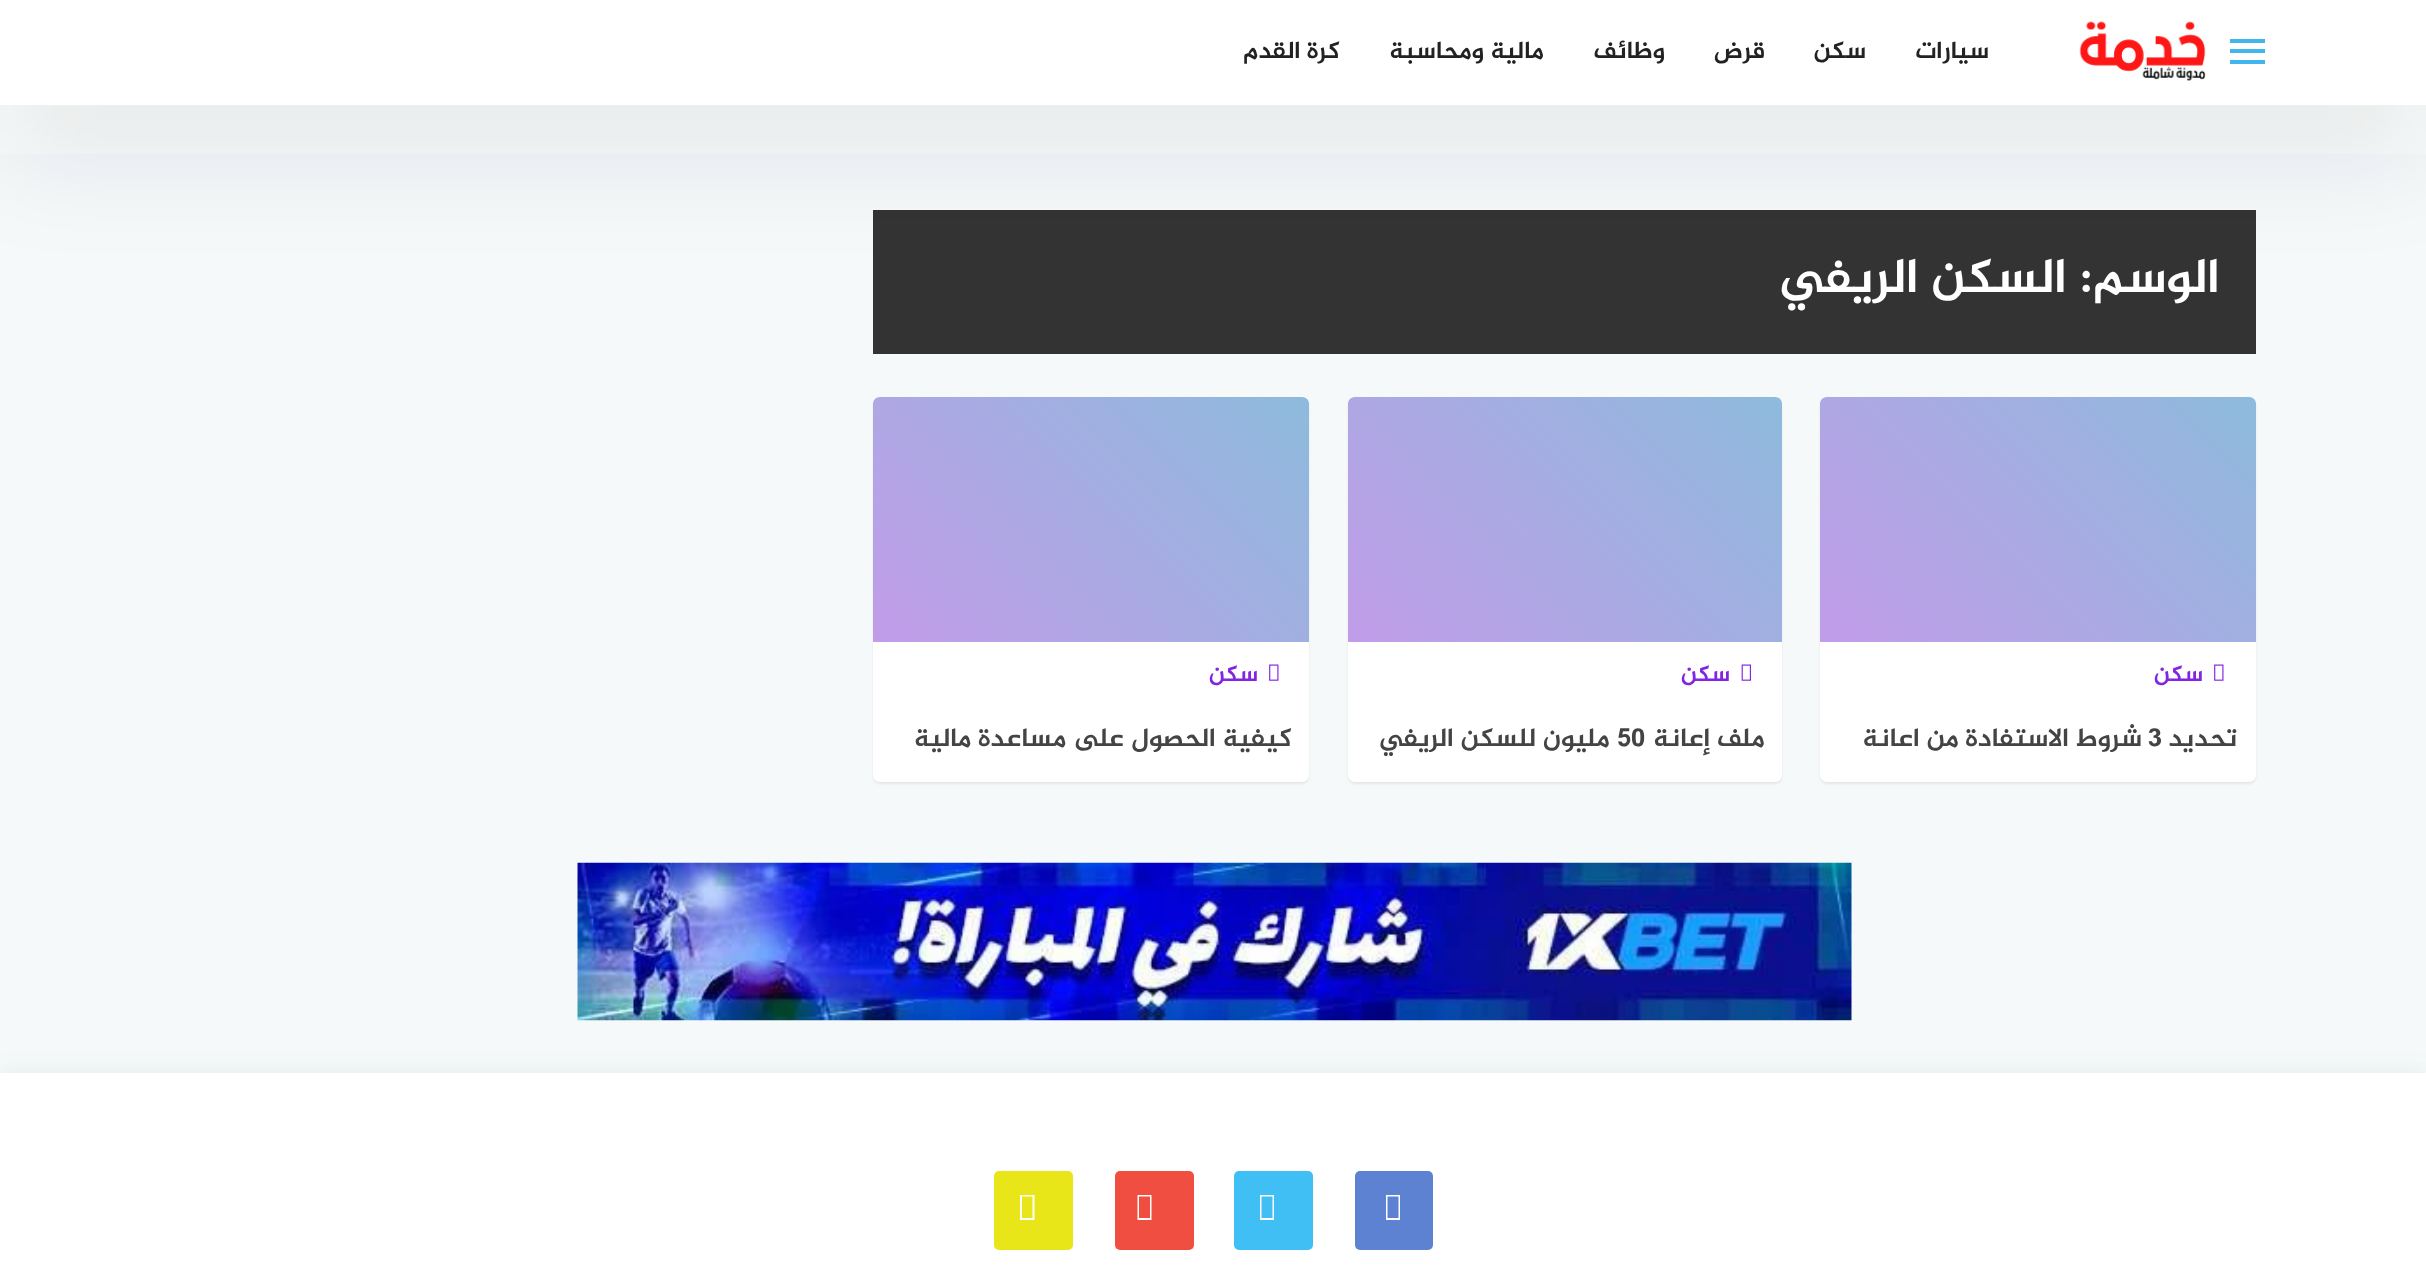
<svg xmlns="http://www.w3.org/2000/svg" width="2426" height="1285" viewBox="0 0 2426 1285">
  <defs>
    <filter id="blur1" x="-50%" y="-200%" width="200%" height="500%"><feGaussianBlur stdDeviation="52.5"/></filter>
    <filter id="blur2" x="-50%" y="-200%" width="200%" height="500%"><feGaussianBlur stdDeviation="1"/></filter>
    <linearGradient id="g1" gradientUnits="userSpaceOnUse" x1="1868" y1="690" x2="2208" y2="350"><stop offset="0" stop-color="#8224e3" stop-opacity="0.4"/><stop offset="1" stop-color="#0070c6" stop-opacity="0.4"/></linearGradient>
    <linearGradient id="g2" gradientUnits="userSpaceOnUse" x1="1395" y1="690" x2="1734" y2="350"><stop offset="0" stop-color="#8224e3" stop-opacity="0.4"/><stop offset="1" stop-color="#0070c6" stop-opacity="0.4"/></linearGradient>
    <linearGradient id="g3" gradientUnits="userSpaceOnUse" x1="921" y1="690" x2="1261" y2="350"><stop offset="0" stop-color="#8224e3" stop-opacity="0.4"/><stop offset="1" stop-color="#0070c6" stop-opacity="0.4"/></linearGradient>
    <filter id="blur3" x="-50%" y="-200%" width="200%" height="500%"><feGaussianBlur stdDeviation="10.5"/></filter>
  </defs>
  <rect width="100%" height="100%" fill="#f6f9f9"/>
  <rect x="873" y="210" width="1383" height="144" fill="#333333"/>
  <rect x="0" y="51" width="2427" height="105" fill="#363949" fill-opacity="0.09" filter="url(#blur1)"/>
  <rect x="0" y="0" width="2426" height="105" fill="#ffffff"/>
  <rect x="2230" y="39" width="35" height="4" fill="#41b6ec"/>
  <rect x="2230" y="49" width="35" height="4" fill="#41b6ec"/>
  <rect x="2230" y="60" width="35" height="4" fill="#41b6ec"/>
  <image x="2079" y="21" width="127" height="60" href="img1.png"/>
  <text x="1989" y="58" font-family="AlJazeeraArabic" font-size="24.5" font-weight="bold" direction="rtl" fill="#222222">سيارات</text>
  <text x="1866" y="58" font-family="AlJazeeraArabic" font-size="24.5" font-weight="bold" direction="rtl" fill="#222222">سكن</text>
  <text x="1765" y="58" font-family="AlJazeeraArabic" font-size="24.5" font-weight="bold" direction="rtl" fill="#222222">قرض</text>
  <text x="1665" y="58" font-family="AlJazeeraArabic" font-size="24.5" font-weight="bold" direction="rtl" fill="#222222">وظائف</text>
  <text x="1544" y="58" font-family="AlJazeeraArabic" font-size="24.5" font-weight="bold" direction="rtl" fill="#222222">مالية ومحاسبة</text>
  <text x="1340" y="58" font-family="AlJazeeraArabic" font-size="24.5" font-weight="bold" direction="rtl" fill="#222222">كرة القدم</text>
  <text x="2220" y="292" font-family="AlJazeeraArabic" font-size="49" font-weight="bold" direction="rtl" fill="#ffffff">الوسم:</text>
  <text x="2067" y="292" font-family="AlJazeeraArabic" font-size="49" font-weight="bold" direction="rtl" fill="#ffffff">السكن الريفي</text>
  <rect x="1820" y="399" width="436" height="385" rx="7" fill="#000000" fill-opacity="0.07" filter="url(#blur2)"/>
  <rect x="1820" y="397" width="436" height="385" rx="7" fill="#ffffff"/>
  <path d="M1827 397H2249C2253 397 2256 400 2256 404V642H1820V404C1820 400 1823 397 1827 397Z" fill="#ececec"/>
  <path d="M1827 397H2249C2253 397 2256 400 2256 404V642H1820V404C1820 400 1823 397 1827 397Z" fill="url(#g1)"/>
  <image x="2214" y="664" width="10" height="17" href="img2.png"/>
  <text x="2203" y="681" font-family="AlJazeeraArabic" font-size="23" font-weight="bold" direction="rtl" fill="#8224e3">سكن</text>
  <text x="2237" y="746" font-family="AlJazeeraArabic" font-size="26.25" font-weight="bold" direction="rtl" fill="#444444">تحديد</text>
  <text x="2148" y="746" font-family="AlJazeeraArabic" font-size="26.25" font-weight="bold" fill="#444444">3</text>
  <text x="2142" y="746" font-family="AlJazeeraArabic" font-size="26.25" font-weight="bold" direction="rtl" fill="#444444">شروط الاستفادة من اعانة</text>
  <rect x="1348" y="399" width="434" height="385" rx="7" fill="#000000" fill-opacity="0.07" filter="url(#blur2)"/>
  <rect x="1348" y="397" width="434" height="385" rx="7" fill="#ffffff"/>
  <path d="M1355 397H1775C1779 397 1782 400 1782 404V642H1348V404C1348 400 1351 397 1355 397Z" fill="#ececec"/>
  <path d="M1355 397H1775C1779 397 1782 400 1782 404V642H1348V404C1348 400 1351 397 1355 397Z" fill="url(#g2)"/>
  <image x="1741" y="664" width="10" height="17" href="img3.png"/>
  <text x="1730" y="681" font-family="AlJazeeraArabic" font-size="23" font-weight="bold" direction="rtl" fill="#8224e3">سكن</text>
  <text x="1765" y="746" font-family="AlJazeeraArabic" font-size="26.25" font-weight="bold" direction="rtl" fill="#444444">ملف إعانة</text>
  <text x="1617" y="746" font-family="AlJazeeraArabic" font-size="26.25" font-weight="bold" fill="#444444">50</text>
  <text x="1610" y="746" font-family="AlJazeeraArabic" font-size="26.25" font-weight="bold" direction="rtl" fill="#444444">مليون للسكن الريفي</text>
  <rect x="873" y="399" width="436" height="385" rx="7" fill="#000000" fill-opacity="0.07" filter="url(#blur2)"/>
  <rect x="873" y="397" width="436" height="385" rx="7" fill="#ffffff"/>
  <path d="M880 397H1302C1306 397 1309 400 1309 404V642H873V404C873 400 876 397 880 397Z" fill="#ececec"/>
  <path d="M880 397H1302C1306 397 1309 400 1309 404V642H873V404C873 400 876 397 880 397Z" fill="url(#g3)"/>
  <image x="1269" y="664" width="10" height="17" href="img2.png"/>
  <text x="1258" y="681" font-family="AlJazeeraArabic" font-size="23" font-weight="bold" direction="rtl" fill="#8224e3">سكن</text>
  <text x="1292" y="746" font-family="AlJazeeraArabic" font-size="26.25" font-weight="bold" direction="rtl" fill="#444444">كيفية الحصول على مساعدة مالية</text>
  <image x="577" y="862" width="1275" height="159" href="img4.png"/>
  <rect x="0" y="1073" width="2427" height="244" fill="#6e8fab" fill-opacity="0.15" filter="url(#blur3)"/>
  <rect x="0" y="1073" width="2426" height="212" fill="#ffffff"/>
  <rect x="1355" y="1171" width="78" height="79" rx="5" fill="#5d82d1"/>
  <path d="M1386 1220V1195H1400V1220ZM1387.5 1218H1398.5V1196.5H1387.5Z" fill="#ffffff"/>
  <rect x="1234" y="1171" width="79" height="79" rx="5" fill="#40bff5"/>
  <path d="M1260 1220V1195H1274V1220ZM1261.5 1218H1272.5V1196.5H1261.5Z" fill="#ffffff"/>
  <rect x="1115" y="1171" width="79" height="79" rx="5" fill="#ef4e41"/>
  <path d="M1137.5 1220V1195H1151.5V1220ZM1139 1218H1150V1196.5H1139Z" fill="#ffffff"/>
  <rect x="994" y="1171" width="79" height="79" rx="5" fill="#e8e519"/>
  <path d="M1020 1220V1195H1034.5V1220ZM1022 1218H1032.5V1196.5H1022Z" fill="#ffffff"/>
</svg>
